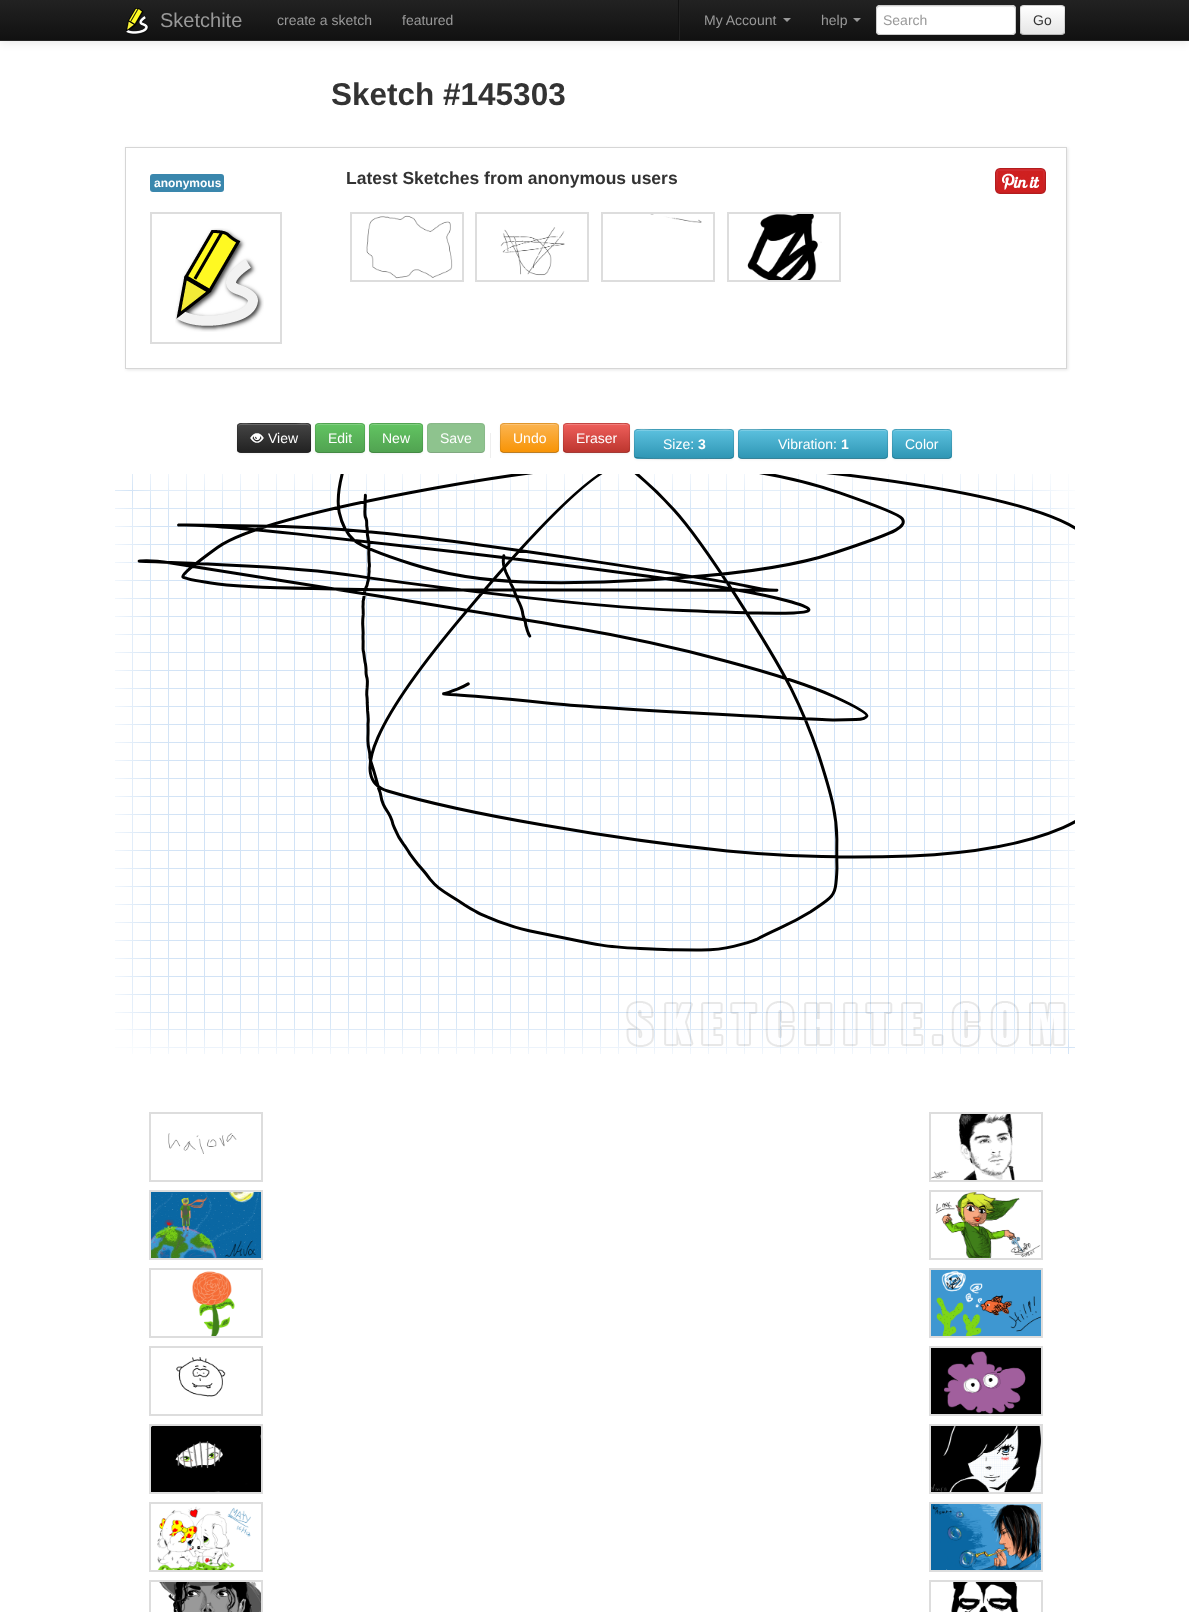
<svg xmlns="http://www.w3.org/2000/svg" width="1189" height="1612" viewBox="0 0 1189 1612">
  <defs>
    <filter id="blur1" x="-50%" y="-200%" width="200%" height="500%"><feGaussianBlur stdDeviation="5"/></filter>
    <linearGradient id="g1" gradientUnits="userSpaceOnUse" x1="595" y1="0" x2="595" y2="40"><stop offset="0" stop-color="#222222"/><stop offset="1" stop-color="#111111"/></linearGradient>
    <clipPath id="clip1"><rect x="1020" y="5" width="45" height="30" rx="4"/></clipPath>
    <linearGradient id="g2" gradientUnits="userSpaceOnUse" x1="1043" y1="6" x2="1043" y2="34"><stop offset="0" stop-color="#ffffff"/><stop offset="1" stop-color="#e6e6e6"/></linearGradient>
    <clipPath id="clip2"><path d="M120 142H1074V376H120ZM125 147H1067V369H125Z" clip-rule="evenodd"/></clipPath>
    <filter id="blur2" x="-50%" y="-200%" width="200%" height="500%"><feGaussianBlur stdDeviation="1.5"/></filter>
    <filter id="blur3" x="-50%" y="-200%" width="200%" height="500%"><feGaussianBlur stdDeviation="1"/></filter>
    <clipPath id="clip3"><rect x="237" y="423" width="74" height="30" rx="4"/></clipPath>
    <linearGradient id="g3" gradientUnits="userSpaceOnUse" x1="274" y1="424" x2="274" y2="452"><stop offset="0" stop-color="#444444"/><stop offset="1" stop-color="#222222"/></linearGradient>
    <clipPath id="clip4"><rect x="315" y="423" width="50" height="30" rx="4"/></clipPath>
    <linearGradient id="g4" gradientUnits="userSpaceOnUse" x1="340" y1="424" x2="340" y2="452"><stop offset="0" stop-color="#62c462"/><stop offset="1" stop-color="#51a351"/></linearGradient>
    <clipPath id="clip5"><rect x="369" y="423" width="54" height="30" rx="4"/></clipPath>
    <linearGradient id="g5" gradientUnits="userSpaceOnUse" x1="396" y1="424" x2="396" y2="452"><stop offset="0" stop-color="#62c462"/><stop offset="1" stop-color="#51a351"/></linearGradient>
    <clipPath id="clip6"><rect x="500" y="423" width="59" height="30" rx="4"/></clipPath>
    <linearGradient id="g6" gradientUnits="userSpaceOnUse" x1="530" y1="424" x2="530" y2="452"><stop offset="0" stop-color="#fbb450"/><stop offset="1" stop-color="#f89406"/></linearGradient>
    <clipPath id="clip7"><rect x="563" y="423" width="67" height="30" rx="4"/></clipPath>
    <linearGradient id="g7" gradientUnits="userSpaceOnUse" x1="597" y1="424" x2="597" y2="452"><stop offset="0" stop-color="#ee5f5b"/><stop offset="1" stop-color="#bd362f"/></linearGradient>
    <clipPath id="clip8"><rect x="634" y="429" width="100" height="30" rx="4"/></clipPath>
    <linearGradient id="g8" gradientUnits="userSpaceOnUse" x1="684" y1="430" x2="684" y2="458"><stop offset="0" stop-color="#5bc0de"/><stop offset="1" stop-color="#2f96b4"/></linearGradient>
    <clipPath id="clip9"><rect x="738" y="429" width="150" height="30" rx="4"/></clipPath>
    <linearGradient id="g9" gradientUnits="userSpaceOnUse" x1="813" y1="430" x2="813" y2="458"><stop offset="0" stop-color="#5bc0de"/><stop offset="1" stop-color="#2f96b4"/></linearGradient>
    <clipPath id="clip10"><rect x="892" y="429" width="60" height="30" rx="4"/></clipPath>
    <linearGradient id="g10" gradientUnits="userSpaceOnUse" x1="922" y1="430" x2="922" y2="458"><stop offset="0" stop-color="#5bc0de"/><stop offset="1" stop-color="#2f96b4"/></linearGradient>
  </defs>
  <rect width="100%" height="100%" fill="#ffffff"/>
  <rect x="0" y="1" width="1189" height="41" fill="#000000" fill-opacity="0.1" filter="url(#blur1)"/>
  <rect x="0" y="0" width="1189" height="40" fill="url(#g1)"/>
  <rect x="0" y="40" width="1189" height="1" fill="#252525"/>
  <image x="126" y="8" width="23" height="27" href="img1.png"/>
  <text x="160" y="27" font-family="Liberation Sans" font-size="20" fill="#999999">Sketchite</text>
  <text x="277" y="25" font-family="Liberation Sans" font-size="14" fill="#999999">create a sketch</text>
  <text x="402" y="25" font-family="Liberation Sans" font-size="14" fill="#999999">featured</text>
  <rect x="679" y="0" width="1" height="40" fill="#222222"/>
  <rect x="678" y="0" width="1" height="40" fill="#111111"/>
  <text x="704" y="25" font-family="Liberation Sans" font-size="14" fill="#999999">My Account</text>
  <path d="M783 18H791L787 22Z" fill="#999999"/>
  <text x="821" y="25" font-family="Liberation Sans" font-size="14" fill="#999999">help</text>
  <path d="M853 18H861L857 22Z" fill="#999999"/>
  <rect x="876" y="5" width="140" height="30" rx="4" fill="#ffffff"/>
  <path d="M880 7H1012C1014 7 1015 8 1015 10C1015 8 1015 6 1013 6H879C877 6 877 8 877 10C877 8 878 7 880 7Z" fill="#ececec"/>
  <rect x="876.5" y="5.5" width="139" height="29" rx="3.5" fill="none" stroke="#cccccc"/>
  <text x="883" y="25" font-family="Liberation Sans" font-size="14" fill="#999999">Search</text>
  <rect x="1020" y="5" width="45" height="30" rx="4" fill="#f5f5f5"/>
  <g clip-path="url(#clip1)">
    <rect x="1020" y="6" width="45" height="28" fill="url(#g2)"/>
  </g>
  <path d="M1063.5 33.5C1063 34 1062 34.5 1061 34.5H1024C1023 34.5 1022 34 1021.5 33.5" fill="none" stroke="#000000" stroke-opacity="0.25"/>
  <path d="M1021.5 33.5C1019.5 31.5 1020.5 23 1020.5 20C1020.5 6.5 1017.5 5.5 1030 5.5H1055C1067.5 5.5 1064.5 6.5 1064.5 20C1064.5 23 1065.5 31.5 1063.5 33.5" fill="none" stroke="#000000" stroke-opacity="0.15"/>
  <text x="1033" y="25" font-family="Liberation Sans" font-size="14" fill="#333333">Go</text>
  <text x="331" y="105" font-family="Liberation Sans" font-size="31.5" font-weight="bold" fill="#333333">Sketch #145303</text>
  <g clip-path="url(#clip2)">
    <rect x="126" y="148" width="942" height="222" fill="#000000" fill-opacity="0.1" filter="url(#blur2)"/>
  </g>
  <rect x="125.5" y="147.5" width="941" height="221" fill="none" stroke="#d6d6d6"/>
  <rect x="150" y="174" width="74" height="18" rx="3" fill="#3a87ad"/>
  <text x="154" y="187" font-family="Liberation Sans" font-size="12" font-weight="bold" fill="#ffffff">anonymous</text>
  <rect x="151" y="213" width="130" height="130" fill="none" stroke="#dddddd" stroke-width="2"/>
  <image x="175" y="228" width="89" height="104" href="img2.png"/>
  <text x="346" y="184" font-family="Liberation Sans" font-size="17.5" font-weight="bold" fill="#333333">Latest Sketches from anonymous users</text>
  <image x="995" y="168" width="51" height="26" href="img3.png"/>
  <rect x="351" y="213" width="112" height="68" fill="none" stroke="#dddddd" stroke-width="2"/>
  <image x="366" y="215" width="87" height="64" href="img4.png"/>
  <rect x="476" y="213" width="112" height="68" fill="none" stroke="#dddddd" stroke-width="2"/>
  <image x="500" y="227" width="65" height="49" href="img5.png"/>
  <rect x="602" y="213" width="112" height="68" fill="none" stroke="#dddddd" stroke-width="2"/>
  <image x="650" y="214" width="52" height="9" href="img6.png"/>
  <rect x="728" y="213" width="112" height="68" fill="none" stroke="#dddddd" stroke-width="2"/>
  <image x="747" y="214" width="75" height="66" href="img7.png"/>
  <rect x="237" y="424" width="74" height="30" rx="4" fill="#000000" fill-opacity="0.05" filter="url(#blur3)"/>
  <rect x="237" y="423" width="74" height="30" rx="4" fill="#363636"/>
  <g clip-path="url(#clip3)">
    <rect x="237" y="424" width="74" height="28" fill="url(#g3)"/>
  </g>
  <path d="M241 425H307C309 425 310 426 310 428C310 421 300 424 296 424H252C248 424 238 421 238 428C238 426 239 425 241 425Z" fill="#ffffff" fill-opacity="0.2"/>
  <path d="M309.5 451.5L307.5 452.5H240.5L238.5 451.5" fill="none" stroke="#000000" stroke-opacity="0.25"/>
  <path d="M238.5 451.5C236.5 449.5 237.5 441 237.5 438C237.5 421.5 235 423.5 252 423.5H296C313 423.5 310.5 421.5 310.5 438C310.5 441 311.5 449.5 309.5 451.5" fill="none" stroke="#000000" stroke-opacity="0.1"/>
  <image x="250" y="433" width="14" height="10" href="img8.png"/>
  <text x="268" y="443" font-family="Liberation Sans" font-size="14" fill="#ffffff">View</text>
  <rect x="315" y="424" width="50" height="30" rx="4" fill="#000000" fill-opacity="0.05" filter="url(#blur3)"/>
  <rect x="315" y="423" width="50" height="30" rx="4" fill="#5bb75b"/>
  <g clip-path="url(#clip4)">
    <rect x="315" y="424" width="50" height="28" fill="url(#g4)"/>
  </g>
  <path d="M319 425H361C363 425 364 426 364 428C364 422 358 424 354 424H326C322 424 316 422 316 428C316 426 317 425 319 425Z" fill="#81cf81"/>
  <path d="M363.5 451.5C363 452 362 452.5 361 452.5H319C318 452.5 317 452 316.5 451.5" fill="none" stroke="#000000" stroke-opacity="0.25"/>
  <path d="M316.5 451.5C314.5 449.5 315.5 441 315.5 438C315.5 424 312.5 423.5 326 423.5H354C367.5 423.5 364.5 424 364.5 438C364.5 441 365.5 449.5 363.5 451.5" fill="none" stroke="#000000" stroke-opacity="0.1"/>
  <text x="328" y="443" font-family="Liberation Sans" font-size="14" fill="#ffffff">Edit</text>
  <rect x="369" y="424" width="54" height="30" rx="4" fill="#000000" fill-opacity="0.05" filter="url(#blur3)"/>
  <rect x="369" y="423" width="54" height="30" rx="4" fill="#5bb75b"/>
  <g clip-path="url(#clip5)">
    <rect x="369" y="424" width="54" height="28" fill="url(#g5)"/>
  </g>
  <path d="M373 425H419C421 425 422 426 422 428C422 422 416 424 411 424H381C376 424 370 422 370 428C370 426 371 425 373 425Z" fill="#81cf81"/>
  <path d="M421.5 451.5C421 452 420 452.5 419 452.5H373C372 452.5 371 452 370.5 451.5" fill="none" stroke="#000000" stroke-opacity="0.25"/>
  <path d="M370.5 451.5C368.5 449.5 369.5 441 369.5 438C369.5 423.5 366.5 423.5 380.5 423.5H411.5C425.5 423.5 422.5 423.5 422.5 438C422.5 441 423.5 449.5 421.5 451.5" fill="none" stroke="#000000" stroke-opacity="0.1"/>
  <text x="382" y="443" font-family="Liberation Sans" font-size="14" fill="#ffffff">New</text>
  <rect x="427" y="423" width="58" height="30" rx="4" fill="#8ec38e"/>
  <path d="M483.5 451.5L481.5 452.5H430.5L428.5 451.5" fill="none" stroke="#595959" stroke-opacity="0.25"/>
  <path d="M428.5 451.5C426.5 449.5 427.5 441 427.5 438C427.5 423 425 423.5 439.5 423.5H472.5C487 423.5 484.5 423 484.5 438C484.5 441 485.5 449.5 483.5 451.5" fill="none" stroke="#595959" stroke-opacity="0.1"/>
  <text x="440" y="443" font-family="Liberation Sans" font-size="14" fill="#ffffff">Save</text>
  <rect x="490" y="433" width="1" height="25" fill="#eeeeee"/>
  <rect x="500" y="424" width="59" height="30" rx="4" fill="#000000" fill-opacity="0.05" filter="url(#blur3)"/>
  <rect x="500" y="423" width="59" height="30" rx="4" fill="#faa732"/>
  <g clip-path="url(#clip6)">
    <rect x="500" y="424" width="59" height="28" fill="url(#g6)"/>
  </g>
  <path d="M504 425H555C557 425 558 426 558 428C558 422 551 424 546 424H512C508 424 501 422 501 428C501 426 502 425 504 425Z" fill="#fcc272"/>
  <path d="M557.5 451.5L555.5 452.5H503.5L501.5 451.5" fill="none" stroke="#000000" stroke-opacity="0.25"/>
  <path d="M501.5 451.5C499.5 449.5 500.5 441 500.5 438C500.5 423 498 423.5 512.5 423.5H546.5C561 423.5 558.5 423 558.5 438C558.5 441 559.5 449.5 557.5 451.5" fill="none" stroke="#000000" stroke-opacity="0.1"/>
  <text x="513" y="443" font-family="Liberation Sans" font-size="14" fill="#ffffff">Undo</text>
  <rect x="563" y="424" width="67" height="30" rx="4" fill="#000000" fill-opacity="0.05" filter="url(#blur3)"/>
  <rect x="563" y="423" width="67" height="30" rx="4" fill="#da4f49"/>
  <g clip-path="url(#clip7)">
    <rect x="563" y="424" width="67" height="28" fill="url(#g7)"/>
  </g>
  <path d="M567 425H626C628 425 629 426 629 428C629 422 621 424 616 424H577C572 424 564 422 564 428C564 426 565 425 567 425Z" fill="#f17e7b"/>
  <path d="M628.5 451.5L626.5 452.5H566.5L564.5 451.5" fill="none" stroke="#000000" stroke-opacity="0.25"/>
  <path d="M564.5 451.5C562.5 449.5 563.5 441 563.5 438C563.5 422 561 423.5 577 423.5H616C632 423.5 629.5 422 629.5 438C629.5 441 630.5 449.5 628.5 451.5" fill="none" stroke="#000000" stroke-opacity="0.1"/>
  <text x="576" y="443" font-family="Liberation Sans" font-size="14" fill="#ffffff">Eraser</text>
  <rect x="634" y="430" width="100" height="30" rx="4" fill="#000000" fill-opacity="0.05" filter="url(#blur3)"/>
  <rect x="634" y="429" width="100" height="30" rx="4" fill="#49afcd"/>
  <g clip-path="url(#clip8)">
    <rect x="634" y="430" width="100" height="28" fill="url(#g8)"/>
  </g>
  <path d="M638 431H730C732 431 733 432 733 434C733 426 718 430 715 430H653C650 430 635 426 635 434C635 432 636 431 638 431Z" fill="#ffffff" fill-opacity="0.2"/>
  <path d="M732.5 457.5L730 458.5H714.5C706 458.5 638 459.5 636 457.5H635.5" fill="none" stroke="#000000" stroke-opacity="0.25"/>
  <path d="M635.5 457.5C633 455 634.5 450.5 634.5 447.5C634.5 426 631 429.5 653.5 429.5H714.5C737 429.5 733.5 426 733.5 447.5C733.5 450.5 735 455 732.5 457.5" fill="none" stroke="#000000" stroke-opacity="0.1"/>
  <text x="663" y="449" font-family="Liberation Sans" font-size="14" fill="#ffffff">Size:</text>
  <text x="698" y="449" font-family="Liberation Sans" font-size="14" font-weight="bold" fill="#ffffff">3</text>
  <rect x="738" y="430" width="150" height="30" rx="4" fill="#000000" fill-opacity="0.05" filter="url(#blur3)"/>
  <rect x="738" y="429" width="150" height="30" rx="4" fill="#49afcd"/>
  <g clip-path="url(#clip9)">
    <rect x="738" y="430" width="150" height="28" fill="url(#g9)"/>
  </g>
  <path d="M742 431H884C886 431 887 432 887 434C887 432 887 431 885 430H766C758 430 739 425 739 434C739 432 740 431 742 431Z" fill="#ffffff" fill-opacity="0.2"/>
  <path d="M886.5 457.5C886 458 885 458.5 884 458.5H742C741 458.5 740 458 739.5 457.5" fill="none" stroke="#000000" stroke-opacity="0.25"/>
  <path d="M739.5 457.5C737.5 455.5 738.5 447 738.5 444V436.5C738.5 434 738 429.5 742 429.5H884C888 429.5 887.5 434 887.5 436.5V444C887.5 447 888.5 455.5 886.5 457.5" fill="none" stroke="#000000" stroke-opacity="0.1"/>
  <text x="778" y="449" font-family="Liberation Sans" font-size="14" fill="#ffffff">Vibration:</text>
  <text x="841" y="449" font-family="Liberation Sans" font-size="14" font-weight="bold" fill="#ffffff">1</text>
  <rect x="892" y="430" width="60" height="30" rx="4" fill="#000000" fill-opacity="0.05" filter="url(#blur3)"/>
  <rect x="892" y="429" width="60" height="30" rx="4" fill="#49afcd"/>
  <g clip-path="url(#clip10)">
    <rect x="892" y="430" width="60" height="28" fill="url(#g10)"/>
  </g>
  <path d="M896 431H948C950 431 951 432 951 434C951 428 944 430 939 430H905C900 430 893 428 893 434C893 432 894 431 896 431Z" fill="#7bcce4"/>
  <path d="M950.5 457.5L948.5 458.5H895.5L893.5 457.5" fill="none" stroke="#000000" stroke-opacity="0.25"/>
  <path d="M893.5 457.5C891.5 455.5 892.5 447 892.5 444C892.5 429 890 429.5 904.5 429.5H939.5C954 429.5 951.5 429 951.5 444C951.5 447 952.5 455.5 950.5 457.5" fill="none" stroke="#000000" stroke-opacity="0.1"/>
  <text x="905" y="449" font-family="Liberation Sans" font-size="14" fill="#ffffff">Color</text>
  <image x="115" y="474" width="960" height="580" href="img9.png"/>
  <image x="137" y="474" width="938" height="478" href="img10.png"/>
  <rect x="150" y="1113" width="112" height="68" fill="none" stroke="#dddddd" stroke-width="2"/>
  <image x="168" y="1133" width="69" height="21" href="img11.png"/>
  <rect x="150" y="1191" width="112" height="68" fill="none" stroke="#dddddd" stroke-width="2"/>
  <image x="151" y="1192" width="110" height="66" href="img12.png"/>
  <rect x="150" y="1269" width="112" height="68" fill="none" stroke="#dddddd" stroke-width="2"/>
  <image x="192" y="1271" width="43" height="65" href="img13.png"/>
  <rect x="150" y="1347" width="112" height="68" fill="none" stroke="#dddddd" stroke-width="2"/>
  <image x="176" y="1357" width="50" height="40" href="img14.png"/>
  <rect x="150" y="1425" width="112" height="68" fill="none" stroke="#dddddd" stroke-width="2"/>
  <image x="151" y="1426" width="110" height="66" href="img15.png"/>
  <rect x="150" y="1503" width="112" height="68" fill="none" stroke="#dddddd" stroke-width="2"/>
  <image x="157" y="1506" width="94" height="64" href="img16.png"/>
  <rect x="150" y="1581" width="112" height="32" fill="none" stroke="#dddddd" stroke-width="2"/>
  <image x="159" y="1582" width="102" height="30" href="img17.png"/>
  <rect x="930" y="1113" width="112" height="68" fill="none" stroke="#dddddd" stroke-width="2"/>
  <image x="931" y="1114" width="84" height="66" href="img18.png"/>
  <rect x="930" y="1191" width="112" height="68" fill="none" stroke="#dddddd" stroke-width="2"/>
  <image x="935" y="1192" width="106" height="66" href="img19.png"/>
  <rect x="930" y="1269" width="112" height="68" fill="none" stroke="#dddddd" stroke-width="2"/>
  <image x="931" y="1270" width="110" height="66" href="img20.png"/>
  <rect x="930" y="1347" width="112" height="68" fill="none" stroke="#dddddd" stroke-width="2"/>
  <image x="931" y="1348" width="110" height="66" href="img21.png"/>
  <rect x="930" y="1425" width="112" height="68" fill="none" stroke="#dddddd" stroke-width="2"/>
  <image x="931" y="1426" width="110" height="66" href="img22.png"/>
  <rect x="930" y="1503" width="112" height="68" fill="none" stroke="#dddddd" stroke-width="2"/>
  <image x="931" y="1504" width="110" height="66" href="img23.png"/>
  <rect x="930" y="1581" width="112" height="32" fill="none" stroke="#dddddd" stroke-width="2"/>
  <image x="951" y="1582" width="68" height="30" href="img24.png"/>
</svg>
